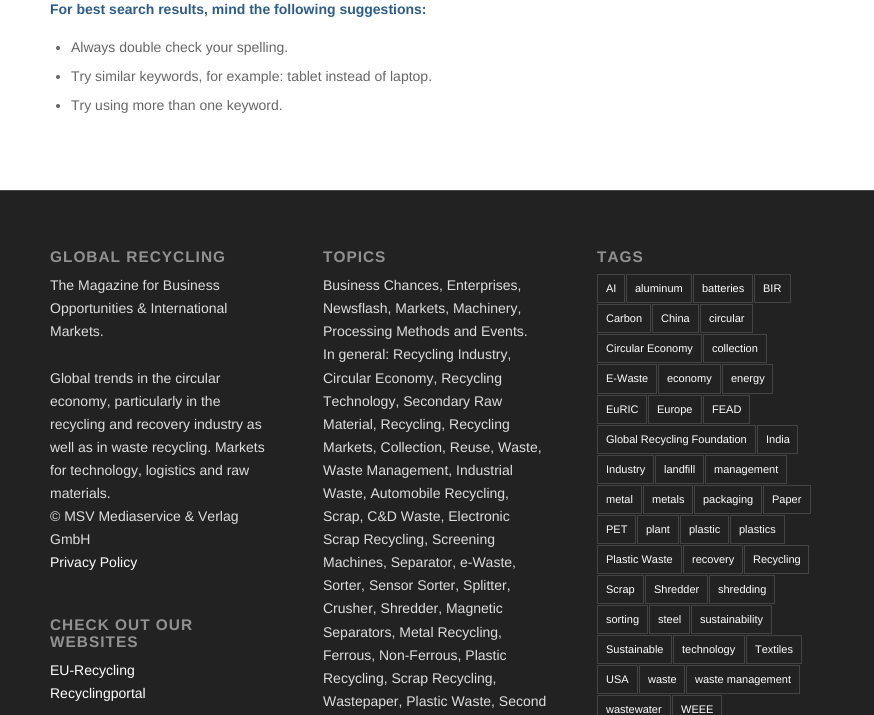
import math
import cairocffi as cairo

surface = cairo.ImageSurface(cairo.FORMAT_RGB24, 874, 715)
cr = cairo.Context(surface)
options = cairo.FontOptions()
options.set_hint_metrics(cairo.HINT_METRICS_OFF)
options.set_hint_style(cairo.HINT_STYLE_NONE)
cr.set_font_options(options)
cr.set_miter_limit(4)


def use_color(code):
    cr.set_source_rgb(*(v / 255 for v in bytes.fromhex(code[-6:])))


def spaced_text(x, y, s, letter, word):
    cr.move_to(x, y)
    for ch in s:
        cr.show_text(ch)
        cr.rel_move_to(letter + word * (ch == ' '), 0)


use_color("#ffffff")
cr.paint()
cr.select_font_face("Liberation Sans", cairo.FONT_SLANT_NORMAL, cairo.FONT_WEIGHT_BOLD)
cr.set_font_size(14)
use_color("#2d5c88")
cr.move_to(50, 14)
cr.show_text("For best search results, mind the following suggestions:")
use_color("#666666")
cr.new_path()
cr.arc(58, 48, 2, 0, 2 * math.pi)
cr.fill()
cr.select_font_face("Liberation Sans")
cr.move_to(71, 52)
cr.show_text("Always double check your spelling.")
cr.new_path()
cr.arc(58, 77, 2, 0, 2 * math.pi)
cr.fill()
cr.move_to(71, 81)
cr.show_text("Try similar keywords, for example: tablet instead of laptop.")
cr.new_path()
cr.arc(58, 106, 2, 0, 2 * math.pi)
cr.fill()
cr.move_to(71, 110)
cr.show_text("Try using more than one keyword.")
use_color("#222222")
cr.rectangle(0, 191, 874, 524)
cr.fill()
use_color("#444444")
cr.rectangle(0, 190, 874, 1)
cr.fill()
cr.select_font_face("Liberation Sans", cairo.FONT_SLANT_NORMAL, cairo.FONT_WEIGHT_BOLD)
cr.set_font_size(15.4)
use_color("#919191")
spaced_text(50, 262, "GLOBAL RECYCLING", 1, 0)
cr.select_font_face("Liberation Sans")
cr.set_font_size(14)
use_color("#dddddd")
cr.move_to(50, 290)
cr.show_text("The Magazine for Business")
cr.move_to(50, 313)
cr.show_text("Opportunities & International")
cr.move_to(50, 336)
cr.show_text("Markets.")
cr.move_to(50, 383)
cr.show_text("Global trends in the circular")
cr.move_to(50, 406)
cr.show_text("economy, particularly in the")
cr.move_to(50, 429)
cr.show_text("recycling and recovery industry as")
cr.move_to(50, 452)
cr.show_text("well as in waste recycling. Markets")
cr.move_to(50, 475)
cr.show_text("for technology, logistics and raw")
cr.move_to(50, 498)
cr.show_text("materials.")
cr.move_to(50, 521)
cr.show_text("© MSV Mediaservice & Verlag")
cr.move_to(50, 544)
cr.show_text("GmbH")
use_color("#ffffff")
cr.move_to(50, 567)
cr.show_text("Privacy Policy")
cr.select_font_face("Liberation Sans", cairo.FONT_SLANT_NORMAL, cairo.FONT_WEIGHT_BOLD)
cr.set_font_size(15.4)
use_color("#919191")
spaced_text(50, 630, "CHECK OUT OUR", 1, 0)
spaced_text(50, 647, "WEBSITES", 1, 0)
cr.select_font_face("Liberation Sans")
cr.set_font_size(14)
use_color("#ffffff")
cr.move_to(50, 675)
cr.show_text("EU-Recycling")
cr.move_to(50, 698)
cr.show_text("Recyclingportal")
cr.select_font_face("Liberation Sans", cairo.FONT_SLANT_NORMAL, cairo.FONT_WEIGHT_BOLD)
cr.set_font_size(15.4)
use_color("#919191")
spaced_text(323, 262, "TOPICS", 1, 0)
cr.select_font_face("Liberation Sans")
cr.set_font_size(14)
use_color("#dddddd")
cr.move_to(323, 290)
cr.show_text("Business Chances, Enterprises,")
cr.move_to(323, 313)
cr.show_text("Newsflash, Markets, Machinery,")
cr.move_to(323, 336)
cr.show_text("Processing Methods and Events.")
cr.move_to(323, 359)
cr.show_text("In general: Recycling Industry,")
cr.move_to(323, 383)
cr.show_text("Circular Economy, Recycling")
cr.move_to(323, 406)
cr.show_text("Technology, Secondary Raw")
cr.move_to(323, 429)
cr.show_text("Material, Recycling, Recycling")
cr.move_to(323, 452)
cr.show_text("Markets, Collection, Reuse, Waste,")
cr.move_to(323, 475)
cr.show_text("Waste Management, Industrial")
cr.move_to(323, 498)
cr.show_text("Waste, Automobile Recycling,")
cr.move_to(323, 521)
cr.show_text("Scrap, C&D Waste, Electronic")
cr.move_to(323, 544)
cr.show_text("Scrap Recycling, Screening")
cr.move_to(323, 567)
cr.show_text("Machines, Separator, e-Waste,")
cr.move_to(323, 590)
cr.show_text("Sorter, Sensor Sorter, Splitter,")
cr.move_to(323, 613)
cr.show_text("Crusher, Shredder, Magnetic")
cr.move_to(323, 637)
cr.show_text("Separators, Metal Recycling,")
cr.move_to(323, 660)
cr.show_text("Ferrous, Non-Ferrous, Plastic")
cr.move_to(323, 683)
cr.show_text("Recycling, Scrap Recycling,")
cr.move_to(323, 706)
cr.show_text("Wastepaper, Plastic Waste, Second")
cr.select_font_face("Liberation Sans", cairo.FONT_SLANT_NORMAL, cairo.FONT_WEIGHT_BOLD)
cr.set_font_size(15.4)
use_color("#919191")
spaced_text(597, 262, "TAGS", 1, 0)
cr.rectangle(597.5, 274.5, 27, 28)
use_color("#444444")
cr.set_line_width(1)
cr.stroke()
cr.select_font_face("Liberation Sans")
cr.set_font_size(11)
use_color("#ffffff")
cr.move_to(606, 292)
cr.show_text("AI")
cr.rectangle(626.5, 274.5, 65, 28)
use_color("#444444")
cr.stroke()
use_color("#ffffff")
cr.move_to(635, 292)
cr.show_text("aluminum")
cr.rectangle(693.5, 274.5, 59, 28)
use_color("#444444")
cr.stroke()
use_color("#ffffff")
cr.move_to(702, 292)
cr.show_text("batteries")
cr.rectangle(754.5, 274.5, 36, 28)
use_color("#444444")
cr.stroke()
use_color("#ffffff")
cr.move_to(763, 292)
cr.show_text("BIR")
cr.rectangle(597.5, 304.5, 53, 28)
use_color("#444444")
cr.stroke()
use_color("#ffffff")
cr.move_to(606, 322)
cr.show_text("Carbon")
cr.rectangle(652.5, 304.5, 46, 28)
use_color("#444444")
cr.stroke()
use_color("#ffffff")
cr.move_to(661, 322)
cr.show_text("China")
cr.rectangle(700.5, 304.5, 52, 28)
use_color("#444444")
cr.stroke()
use_color("#ffffff")
cr.move_to(709, 322)
cr.show_text("circular")
cr.rectangle(597.5, 334.5, 104, 28)
use_color("#444444")
cr.stroke()
use_color("#ffffff")
cr.move_to(606, 352)
cr.show_text("Circular Economy")
cr.rectangle(703.5, 334.5, 63, 28)
use_color("#444444")
cr.stroke()
use_color("#ffffff")
cr.move_to(712, 352)
cr.show_text("collection")
cr.rectangle(597.5, 364.5, 59, 29)
use_color("#444444")
cr.stroke()
use_color("#ffffff")
cr.move_to(606, 382)
cr.show_text("E-Waste")
cr.rectangle(658.5, 364.5, 62, 29)
use_color("#444444")
cr.stroke()
use_color("#ffffff")
cr.move_to(667, 382)
cr.show_text("economy")
cr.rectangle(722.5, 364.5, 50, 29)
use_color("#444444")
cr.stroke()
use_color("#ffffff")
cr.move_to(731, 382)
cr.show_text("energy")
cr.rectangle(597.5, 395.5, 49, 28)
use_color("#444444")
cr.stroke()
use_color("#ffffff")
cr.move_to(606, 413)
cr.show_text("EuRIC")
cr.rectangle(648.5, 395.5, 53, 28)
use_color("#444444")
cr.stroke()
use_color("#ffffff")
cr.move_to(657, 413)
cr.show_text("Europe")
cr.rectangle(703.5, 395.5, 46, 28)
use_color("#444444")
cr.stroke()
use_color("#ffffff")
cr.move_to(712, 413)
cr.show_text("FEAD")
cr.rectangle(597.5, 425.5, 158, 28)
use_color("#444444")
cr.stroke()
use_color("#ffffff")
cr.move_to(606, 443)
cr.show_text("Global Recycling Foundation")
cr.rectangle(757.5, 425.5, 40, 28)
use_color("#444444")
cr.stroke()
use_color("#ffffff")
cr.move_to(766, 443)
cr.show_text("India")
cr.rectangle(597.5, 455.5, 56, 28)
use_color("#444444")
cr.stroke()
use_color("#ffffff")
cr.move_to(606, 473)
cr.show_text("Industry")
cr.rectangle(655.5, 455.5, 48, 28)
use_color("#444444")
cr.stroke()
use_color("#ffffff")
cr.move_to(664, 473)
cr.show_text("landfill")
cr.rectangle(705.5, 455.5, 81, 28)
use_color("#444444")
cr.stroke()
use_color("#ffffff")
cr.move_to(714, 473)
cr.show_text("management")
cr.rectangle(597.5, 485.5, 44, 28)
use_color("#444444")
cr.stroke()
use_color("#ffffff")
cr.move_to(606, 503)
cr.show_text("metal")
cr.rectangle(643.5, 485.5, 49, 28)
use_color("#444444")
cr.stroke()
use_color("#ffffff")
cr.move_to(652, 503)
cr.show_text("metals")
cr.rectangle(694.5, 485.5, 67, 28)
use_color("#444444")
cr.stroke()
use_color("#ffffff")
cr.move_to(703, 503)
cr.show_text("packaging")
cr.rectangle(763.5, 485.5, 47, 28)
use_color("#444444")
cr.stroke()
use_color("#ffffff")
cr.move_to(772, 503)
cr.show_text("Paper")
cr.rectangle(597.5, 515.5, 38, 28)
use_color("#444444")
cr.stroke()
use_color("#ffffff")
cr.move_to(606, 533)
cr.show_text("PET")
cr.rectangle(637.5, 515.5, 41, 28)
use_color("#444444")
cr.stroke()
use_color("#ffffff")
cr.move_to(646, 533)
cr.show_text("plant")
cr.rectangle(680.5, 515.5, 48, 28)
use_color("#444444")
cr.stroke()
use_color("#ffffff")
cr.move_to(689, 533)
cr.show_text("plastic")
cr.rectangle(730.5, 515.5, 54, 28)
use_color("#444444")
cr.stroke()
use_color("#ffffff")
cr.move_to(739, 533)
cr.show_text("plastics")
cr.rectangle(597.5, 545.5, 84, 28)
use_color("#444444")
cr.stroke()
use_color("#ffffff")
cr.move_to(606, 563)
cr.show_text("Plastic Waste")
cr.rectangle(683.5, 545.5, 59, 28)
use_color("#444444")
cr.stroke()
use_color("#ffffff")
cr.move_to(692, 563)
cr.show_text("recovery")
cr.rectangle(744.5, 545.5, 64, 28)
use_color("#444444")
cr.stroke()
use_color("#ffffff")
cr.move_to(753, 563)
cr.show_text("Recycling")
cr.rectangle(597.5, 575.5, 46, 28)
use_color("#444444")
cr.stroke()
use_color("#ffffff")
cr.move_to(606, 593)
cr.show_text("Scrap")
cr.rectangle(645.5, 575.5, 62, 28)
use_color("#444444")
cr.stroke()
use_color("#ffffff")
cr.move_to(654, 593)
cr.show_text("Shredder")
cr.rectangle(709.5, 575.5, 65, 28)
use_color("#444444")
cr.stroke()
use_color("#ffffff")
cr.move_to(718, 593)
cr.show_text("shredding")
cr.rectangle(597.5, 605.5, 50, 28)
use_color("#444444")
cr.stroke()
use_color("#ffffff")
cr.move_to(606, 623)
cr.show_text("sorting")
cr.rectangle(649.5, 605.5, 40, 28)
use_color("#444444")
cr.stroke()
use_color("#ffffff")
cr.move_to(658, 623)
cr.show_text("steel")
cr.rectangle(691.5, 605.5, 80, 28)
use_color("#444444")
cr.stroke()
use_color("#ffffff")
cr.move_to(700, 623)
cr.show_text("sustainability")
cr.rectangle(597.5, 635.5, 74, 28)
use_color("#444444")
cr.stroke()
use_color("#ffffff")
cr.move_to(606, 653)
cr.show_text("Sustainable")
cr.rectangle(673.5, 635.5, 71, 28)
use_color("#444444")
cr.stroke()
use_color("#ffffff")
cr.move_to(682, 653)
cr.show_text("technology")
cr.rectangle(746.5, 635.5, 55, 28)
use_color("#444444")
cr.stroke()
use_color("#ffffff")
cr.move_to(755, 653)
cr.show_text("Textiles")
cr.rectangle(597.5, 665.5, 40, 28)
use_color("#444444")
cr.stroke()
use_color("#ffffff")
cr.move_to(606, 683)
cr.show_text("USA")
cr.rectangle(639.5, 665.5, 45, 28)
use_color("#444444")
cr.stroke()
use_color("#ffffff")
cr.move_to(648, 683)
cr.show_text("waste")
cr.rectangle(686.5, 665.5, 113, 28)
use_color("#444444")
cr.stroke()
use_color("#ffffff")
cr.move_to(695, 683)
cr.show_text("waste management")
cr.rectangle(597.5, 695.5, 73, 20)
use_color("#444444")
cr.stroke()
use_color("#ffffff")
cr.move_to(606, 713)
cr.show_text("wastewater")
cr.rectangle(672.5, 695.5, 49, 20)
use_color("#444444")
cr.stroke()
use_color("#ffffff")
cr.move_to(681, 713)
cr.show_text("WEEE")
surface.write_to_png("result.png")
